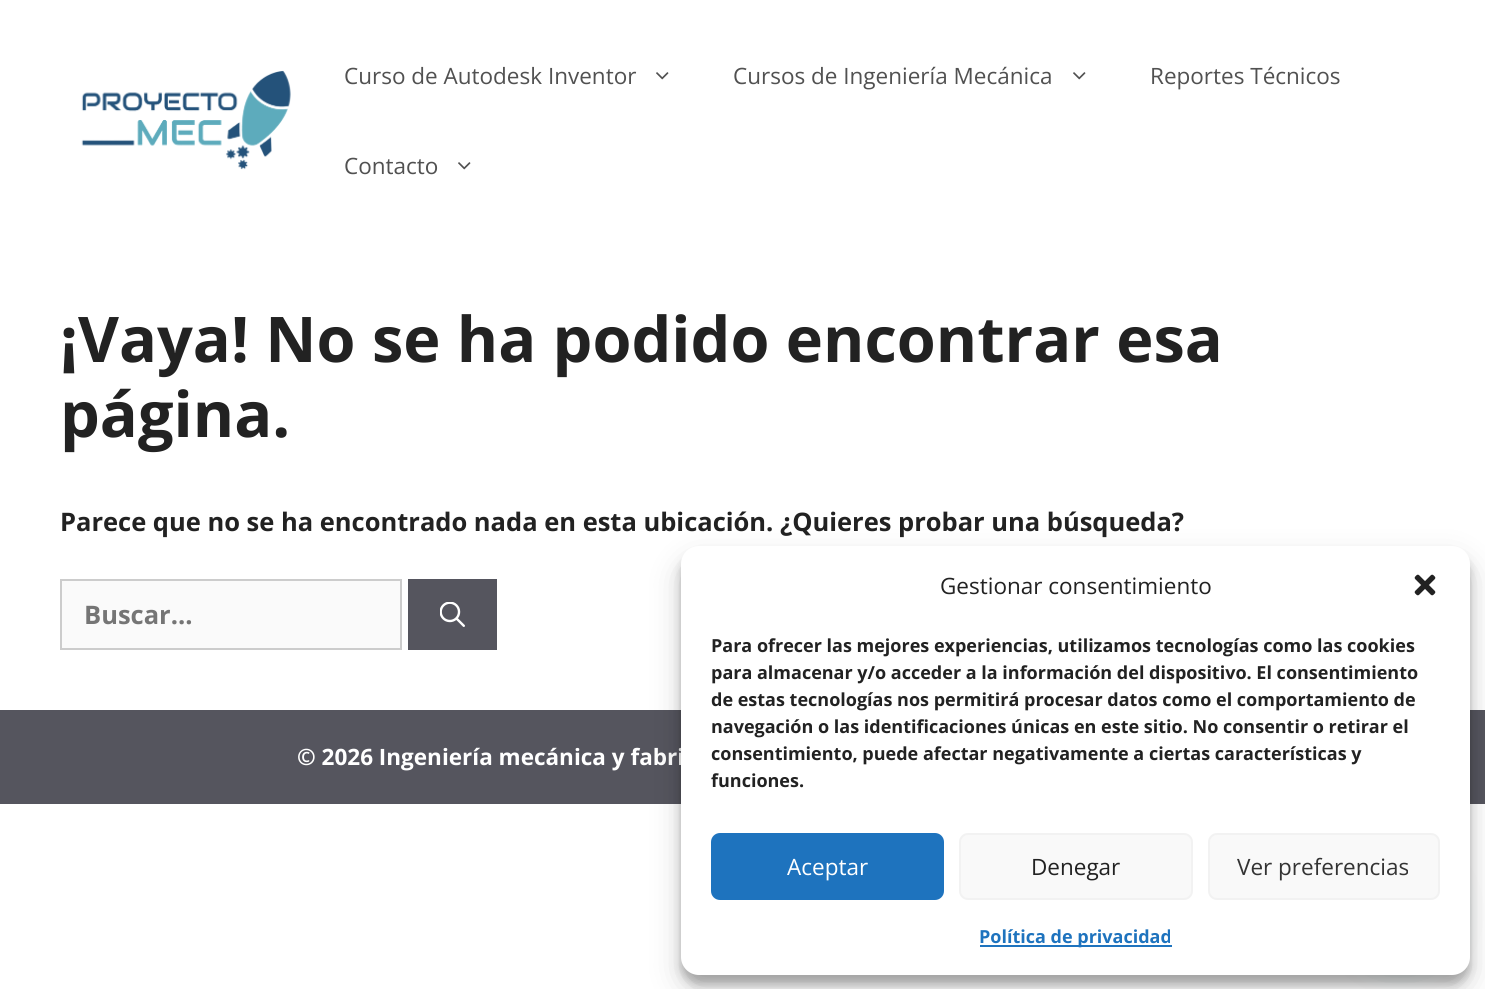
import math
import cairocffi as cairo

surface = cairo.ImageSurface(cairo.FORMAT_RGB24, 1485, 989)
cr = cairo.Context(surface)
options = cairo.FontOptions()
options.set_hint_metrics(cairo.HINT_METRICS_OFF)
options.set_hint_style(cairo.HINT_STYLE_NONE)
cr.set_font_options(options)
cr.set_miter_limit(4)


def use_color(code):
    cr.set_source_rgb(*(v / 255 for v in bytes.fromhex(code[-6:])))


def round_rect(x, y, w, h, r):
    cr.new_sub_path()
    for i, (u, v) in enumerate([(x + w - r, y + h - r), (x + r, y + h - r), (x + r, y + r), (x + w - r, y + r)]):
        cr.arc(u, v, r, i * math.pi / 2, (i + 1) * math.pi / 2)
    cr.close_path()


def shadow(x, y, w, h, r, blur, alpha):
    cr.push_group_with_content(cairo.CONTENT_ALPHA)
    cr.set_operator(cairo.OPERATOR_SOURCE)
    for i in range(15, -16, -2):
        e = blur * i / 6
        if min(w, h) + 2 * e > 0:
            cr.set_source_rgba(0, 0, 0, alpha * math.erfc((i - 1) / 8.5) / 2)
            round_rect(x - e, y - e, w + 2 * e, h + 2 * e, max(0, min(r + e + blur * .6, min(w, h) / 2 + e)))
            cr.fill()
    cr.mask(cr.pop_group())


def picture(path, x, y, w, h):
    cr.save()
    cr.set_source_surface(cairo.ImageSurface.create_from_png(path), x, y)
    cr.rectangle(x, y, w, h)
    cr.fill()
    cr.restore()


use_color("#ffffff")
cr.paint()
picture("img1.png", 81, 70, 210, 100)
cr.select_font_face("Open Sans")
cr.set_font_size(22.5)
use_color("#515151")
cr.move_to(344, 84)
cr.show_text("Curso de Autodesk Inventor")
picture("img2.png", 656, 72, 13, 8)
cr.move_to(733, 84)
cr.show_text("Cursos de Ingeniería Mecánica")
picture("img2.png", 1073, 72, 13, 8)
cr.move_to(1150, 84)
cr.show_text("Reportes Técnicos")
cr.move_to(344, 174)
cr.show_text("Contacto")
picture("img2.png", 458, 162, 13, 8)
cr.select_font_face("Open Sans", cairo.FONT_SLANT_NORMAL, cairo.FONT_WEIGHT_BOLD)
cr.set_font_size(63)
use_color("#222222")
cr.move_to(60, 362)
cr.show_text("¡Vaya! No se ha podido encontrar esa")
cr.move_to(60, 437)
cr.show_text("página.")
cr.set_font_size(25.5)
cr.move_to(60, 531)
cr.show_text("Parece que no se ha encontrado nada en esta ubicación. ¿Quieres probar una búsqueda?")
use_color("#fafafa")
cr.rectangle(61, 580, 340, 69)
cr.fill_preserve()
use_color("#cccccc")
cr.stroke()
use_color("#757575")
cr.move_to(84, 624)
cr.show_text("Buscar...")
use_color("#55555e")
cr.rectangle(408, 579, 89, 71)
cr.fill()
picture("img3.png", 440, 602, 25, 25)
cr.rectangle(0, 710, 1485, 94)
cr.fill()
cr.set_font_size(22.5)
use_color("#ffffff")
cr.move_to(297, 765)
cr.show_text("© 2026 Ingeniería mecánica y fabri")
use_color("#000000")
shadow(681, 555, 789, 429, 18, 4.5, 0.23)
shadow(681, 561, 789, 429, 18, 15, 0.19)
use_color("#075e54")
shadow(1355, 867, 90, 90, 45, 18, 0.24)
use_color("#ffffff")
round_rect(681, 546, 789, 429, 18)
cr.fill()
cr.select_font_face("Open Sans")
use_color("#222222")
cr.move_to(940, 594)
cr.show_text("Gestionar consentimiento")
picture("img4.png", 1414, 574, 22, 22)
cr.select_font_face("Open Sans", cairo.FONT_SLANT_NORMAL, cairo.FONT_WEIGHT_BOLD)
cr.set_font_size(18)
cr.move_to(711, 652)
cr.show_text("Para ofrecer las mejores experiencias, utilizamos tecnologías como las cookies")
cr.move_to(711, 679)
cr.show_text("para almacenar y/o acceder a la información del dispositivo. El consentimiento")
cr.move_to(711, 706)
cr.show_text("de estas tecnologías nos permitirá procesar datos como el comportamiento de")
cr.move_to(711, 733)
cr.show_text("navegación o las identificaciones únicas en este sitio. No consentir o retirar el")
cr.move_to(711, 760)
cr.show_text("consentimiento, puede afectar negativamente a ciertas características y")
cr.move_to(711, 787)
cr.show_text("funciones.")
use_color("#1e73be")
round_rect(712, 834, 231, 65, 8)
cr.fill_preserve()
cr.stroke()
cr.select_font_face("Open Sans")
cr.set_font_size(22.5)
use_color("#ffffff")
cr.move_to(787, 875)
cr.show_text("Aceptar")
use_color("#f9f9f9")
round_rect(960, 834, 232, 65, 8)
cr.fill_preserve()
use_color("#f2f2f2")
cr.stroke()
use_color("#222222")
cr.move_to(1031, 875)
cr.show_text("Denegar")
use_color("#f9f9f9")
round_rect(1209, 834, 230, 65, 8)
cr.fill_preserve()
use_color("#f2f2f2")
cr.stroke()
use_color("#333333")
cr.move_to(1237, 875)
cr.show_text("Ver preferencias")
use_color("#1e73be")
cr.rectangle(980, 945, 192, 2)
cr.fill()
cr.select_font_face("Open Sans", cairo.FONT_SLANT_NORMAL, cairo.FONT_WEIGHT_BOLD)
cr.set_font_size(18)
cr.move_to(979, 943)
cr.show_text("Política de privacidad")
surface.write_to_png("result.png")
